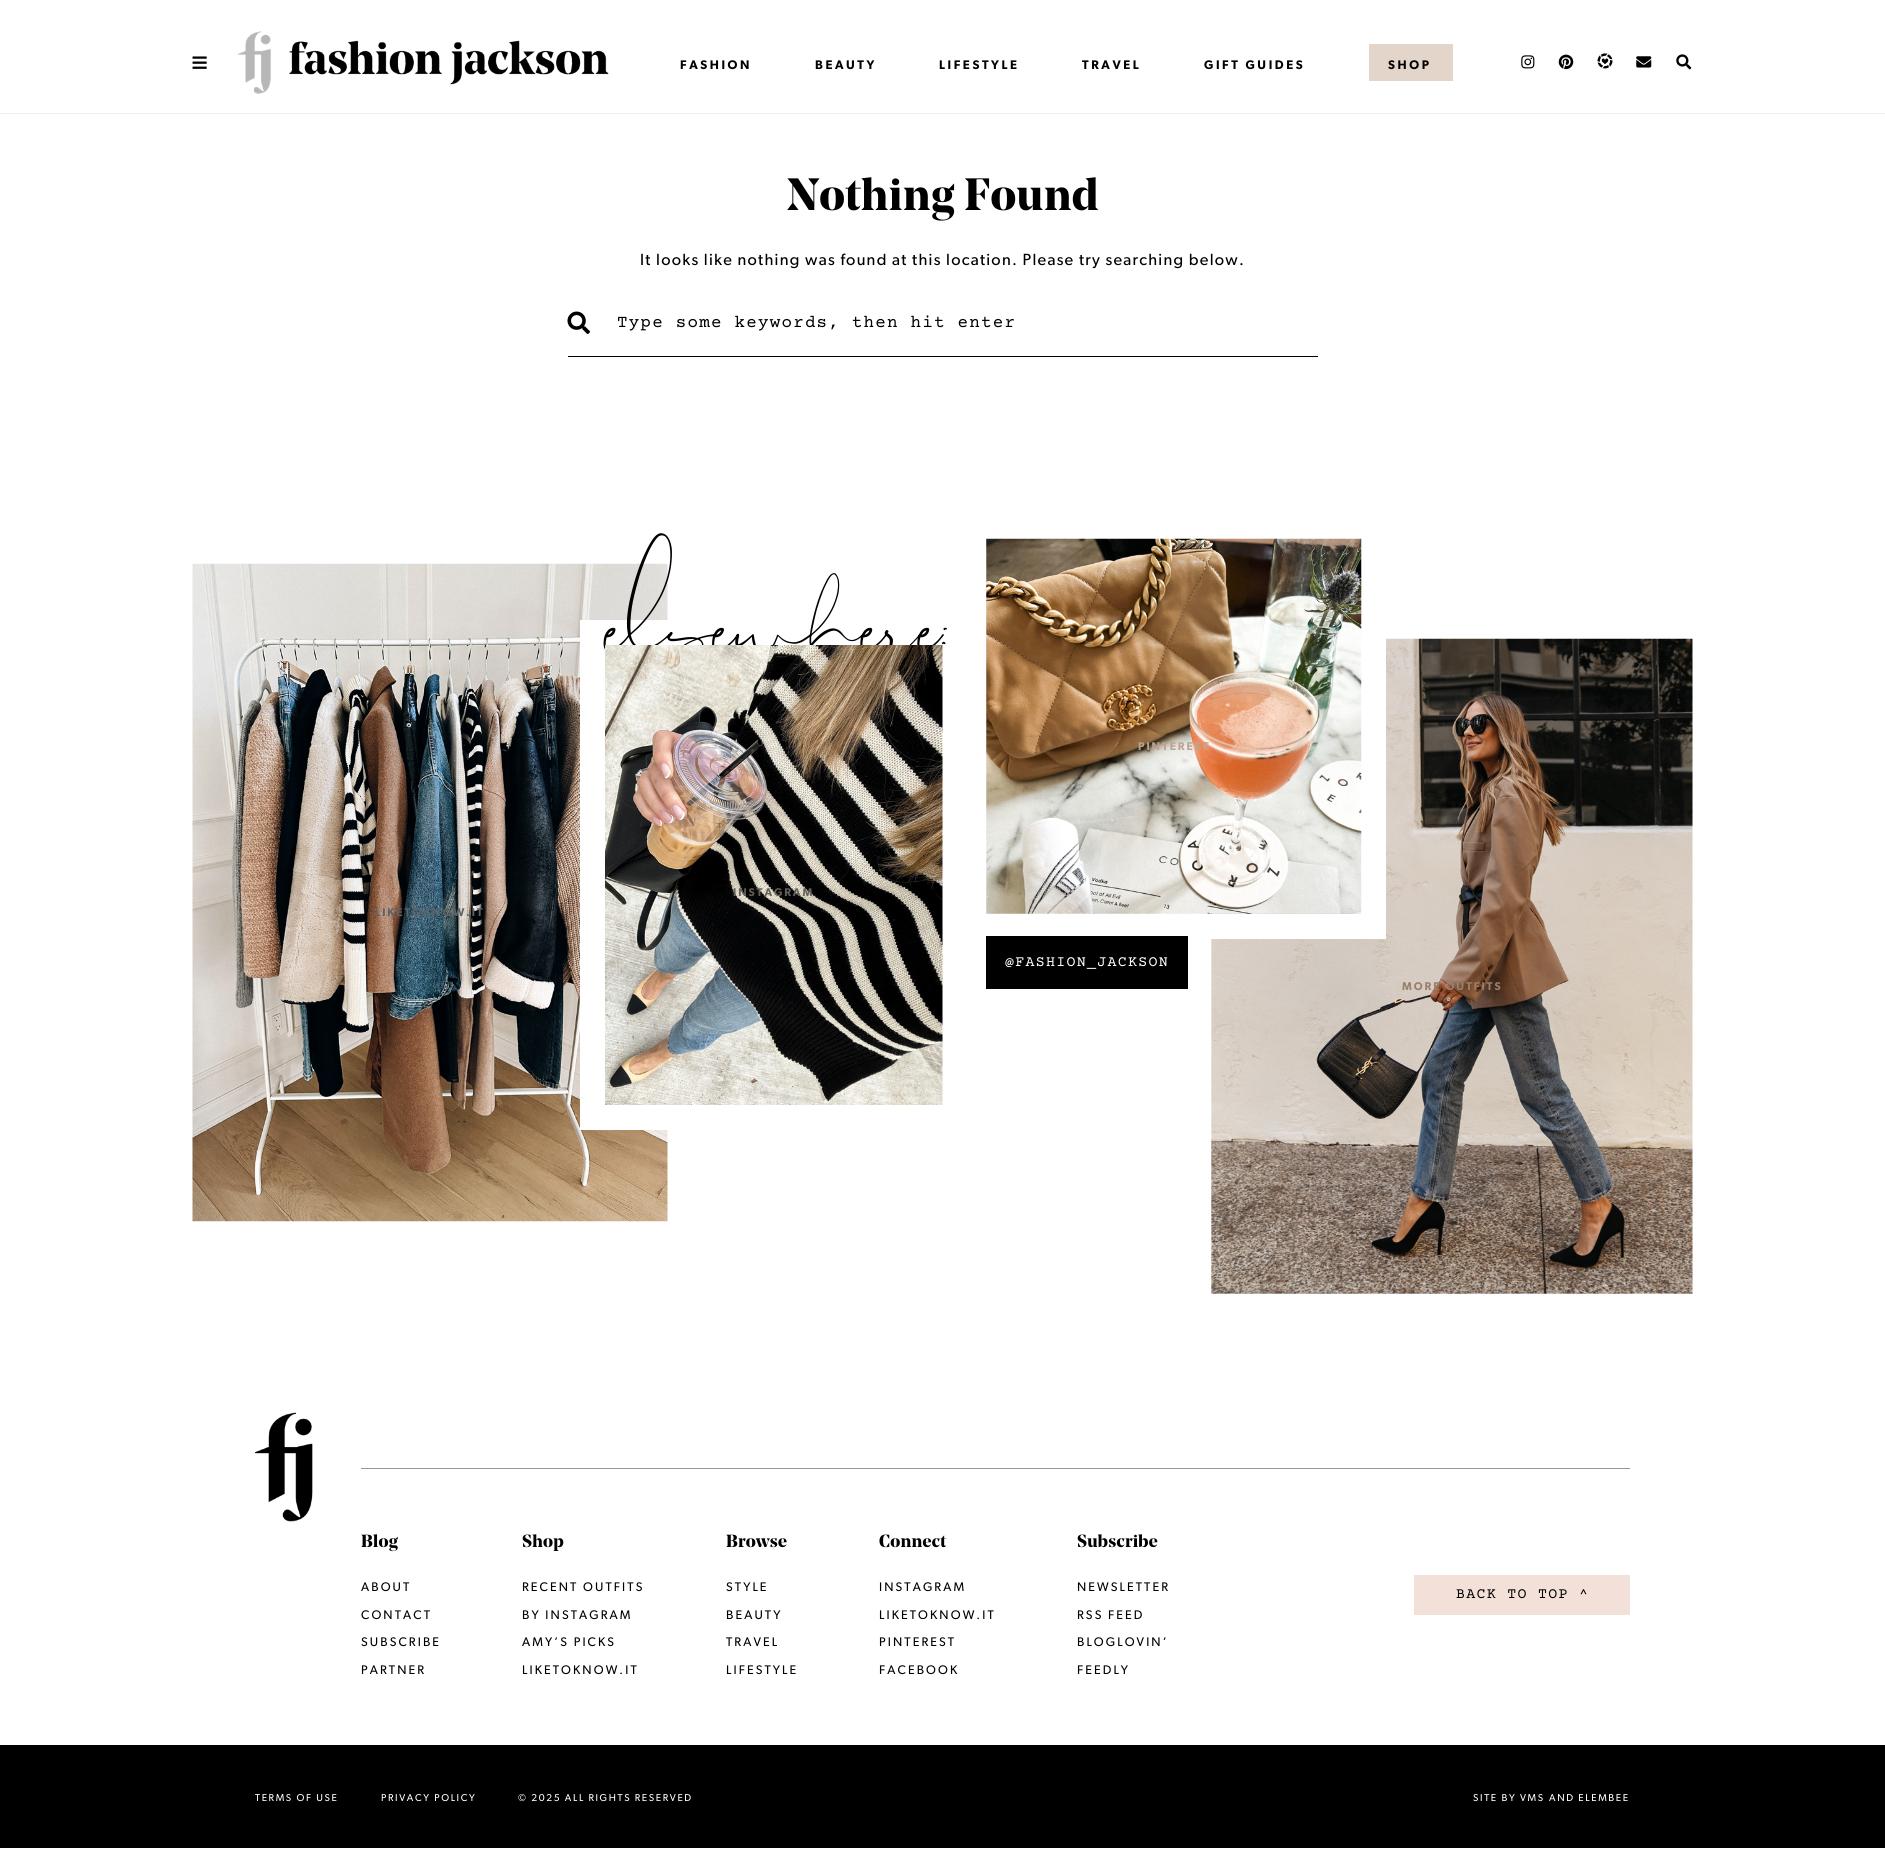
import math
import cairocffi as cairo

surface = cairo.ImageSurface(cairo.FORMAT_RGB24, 1885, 1860)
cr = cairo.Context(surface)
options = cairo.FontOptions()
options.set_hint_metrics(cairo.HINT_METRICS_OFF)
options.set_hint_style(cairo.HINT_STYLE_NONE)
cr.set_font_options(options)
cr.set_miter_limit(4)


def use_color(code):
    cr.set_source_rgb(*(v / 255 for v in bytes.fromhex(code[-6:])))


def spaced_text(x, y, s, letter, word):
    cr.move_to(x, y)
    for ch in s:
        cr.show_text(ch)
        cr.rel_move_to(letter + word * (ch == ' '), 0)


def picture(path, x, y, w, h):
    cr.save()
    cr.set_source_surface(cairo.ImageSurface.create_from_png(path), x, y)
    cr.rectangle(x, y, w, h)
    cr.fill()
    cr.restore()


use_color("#ffffff")
cr.paint()
use_color("#f4f1ec")
cr.rectangle(0, 113, 1885, 1)
cr.fill()
picture("img1.png", 192, 56, 15, 13)
picture("img2.png", 237, 31, 372, 63)
cr.select_font_face("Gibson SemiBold")
cr.set_font_size(12.5)
use_color("#000000")
spaced_text(680, 69, "FASHION", 2.6, 0)
spaced_text(815, 69, "BEAUTY", 2.6, 0)
spaced_text(939, 69, "LIFESTYLE", 2.6, 0)
spaced_text(1082, 69, "TRAVEL", 2.6, 0)
spaced_text(1204, 69, "GIFT GUIDES", 2.6, 0)
use_color("#e4d5ca")
cr.rectangle(1369, 44, 84, 37)
cr.fill()
use_color("#000000")
spaced_text(1388, 69, "SHOP", 2.6, 0)
picture("img3.png", 1521, 55, 14, 14)
picture("img4.png", 1558, 54, 16, 16)
picture("img5.png", 1597, 53, 16, 16)
picture("img6.png", 1636, 56, 16, 12)
picture("img7.png", 1676, 54, 16, 16)
cr.select_font_face("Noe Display", cairo.FONT_SLANT_NORMAL, cairo.FONT_WEIGHT_BOLD)
cr.set_font_size(45)
spaced_text(787, 210, "Nothing Found", 0.4, 0)
cr.select_font_face("Gibson")
cr.set_font_size(16.25)
spaced_text(640, 265, "It looks like nothing was found at this location. Please try searching below.", 1.25, 0)
cr.rectangle(568, 356, 750, 1)
cr.fill()
picture("img8.png", 567, 311, 23, 23)
cr.select_font_face("Courier Prime")
cr.set_font_size(17.5)
spaced_text(617, 327, "Type some keywords, then hit enter", 1.25, 0)
picture("img9.png", 192, 563, 476, 659)
cr.select_font_face("Gibson SemiBold")
cr.set_font_size(11.25)
use_color("#5d6265")
spaced_text(375, 916, "LIKETOKNOW.IT", 1.9, 0)
use_color("#ffffff")
cr.rectangle(605, 620, 63, 25)
cr.fill()
cr.rectangle(580, 620, 25, 510)
cr.fill()
cr.select_font_face("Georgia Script")
cr.set_font_size(180)
use_color("#000000")
cr.move_to(605, 668)
cr.show_text("elsewhere:")
use_color("#ffffff")
cr.rectangle(605, 1105, 63, 25)
cr.fill()
picture("img10.png", 605, 645, 338, 460)
cr.select_font_face("Gibson SemiBold")
cr.set_font_size(11.25)
use_color("#626059")
spaced_text(733, 896, "INSTAGRAM", 1.9, 0)
picture("img12.png", 1211, 638, 482, 656)
use_color("#ffffff")
cr.rectangle(1361, 638, 25, 276)
cr.fill()
cr.rectangle(1211, 914, 175, 25)
cr.fill()
picture("img11.png", 986, 538, 376, 376)
use_color("#bba38f")
spaced_text(1138, 750, "PINTEREST", 1.9, 0)
use_color("#000000")
cr.rectangle(986, 936, 202, 53)
cr.fill()
cr.select_font_face("Courier Prime")
cr.set_font_size(15)
use_color("#ffffff")
spaced_text(1005, 966, "@FASHION_JACKSON", 1.25, 0)
cr.select_font_face("Gibson SemiBold")
cr.set_font_size(11.25)
use_color("#9a7e6d")
spaced_text(1402, 990, "MORE OUTFITS", 1.9, 0)
picture("img13.png", 255, 1412, 58, 110)
use_color("#979797")
cr.rectangle(361, 1468, 1269, 1)
cr.fill()
cr.select_font_face("Noe Display", cairo.FONT_SLANT_NORMAL, cairo.FONT_WEIGHT_BOLD)
cr.set_font_size(17.5)
use_color("#000000")
spaced_text(361, 1547, "Blog", 0.25, 0)
cr.select_font_face("Gibson")
cr.set_font_size(12.5)
spaced_text(361, 1591, "ABOUT", 2.1, 0)
spaced_text(361, 1619, "CONTACT", 2.1, 0)
spaced_text(361, 1646, "SUBSCRIBE", 2.1, 0)
spaced_text(361, 1674, "PARTNER", 2.1, 0)
cr.select_font_face("Noe Display", cairo.FONT_SLANT_NORMAL, cairo.FONT_WEIGHT_BOLD)
cr.set_font_size(17.5)
spaced_text(522, 1547, "Shop", 0.25, 0)
cr.select_font_face("Gibson")
cr.set_font_size(12.5)
spaced_text(522, 1591, "RECENT OUTFITS", 2.1, 0)
spaced_text(522, 1619, "BY INSTAGRAM", 2.1, 0)
spaced_text(522, 1646, "AMY’S PICKS", 2.1, 0)
spaced_text(522, 1674, "LIKETOKNOW.IT", 2.1, 0)
cr.select_font_face("Noe Display", cairo.FONT_SLANT_NORMAL, cairo.FONT_WEIGHT_BOLD)
cr.set_font_size(17.5)
spaced_text(726, 1547, "Browse", 0.25, 0)
cr.select_font_face("Gibson")
cr.set_font_size(12.5)
spaced_text(726, 1591, "STYLE", 2.1, 0)
spaced_text(726, 1619, "BEAUTY", 2.1, 0)
spaced_text(726, 1646, "TRAVEL", 2.1, 0)
spaced_text(726, 1674, "LIFESTYLE", 2.1, 0)
cr.select_font_face("Noe Display", cairo.FONT_SLANT_NORMAL, cairo.FONT_WEIGHT_BOLD)
cr.set_font_size(17.5)
spaced_text(879, 1547, "Connect", 0.25, 0)
cr.select_font_face("Gibson")
cr.set_font_size(12.5)
spaced_text(879, 1591, "INSTAGRAM", 2.1, 0)
spaced_text(879, 1619, "LIKETOKNOW.IT", 2.1, 0)
spaced_text(879, 1646, "PINTEREST", 2.1, 0)
spaced_text(879, 1674, "FACEBOOK", 2.1, 0)
cr.select_font_face("Noe Display", cairo.FONT_SLANT_NORMAL, cairo.FONT_WEIGHT_BOLD)
cr.set_font_size(17.5)
spaced_text(1077, 1547, "Subscribe", 0.25, 0)
cr.select_font_face("Gibson")
cr.set_font_size(12.5)
spaced_text(1077, 1591, "NEWSLETTER", 2.1, 0)
spaced_text(1077, 1619, "RSS FEED", 2.1, 0)
spaced_text(1077, 1646, "BLOGLOVIN’", 2.1, 0)
spaced_text(1077, 1674, "FEEDLY", 2.1, 0)
use_color("#f3e1d9")
cr.rectangle(1414, 1575, 216, 40)
cr.fill()
cr.select_font_face("Courier Prime")
cr.set_font_size(15)
use_color("#000000")
spaced_text(1456, 1598, "BACK TO TOP ^", 1.25, 0)
cr.rectangle(0, 1745, 1885, 103)
cr.fill()
cr.select_font_face("Gibson")
cr.set_font_size(10)
use_color("#ffffff")
spaced_text(255, 1801, "TERMS OF USE", 1.65, 0)
spaced_text(381, 1801, "PRIVACY POLICY", 1.65, 0)
spaced_text(518, 1801, "© 2025 ALL RIGHTS RESERVED", 1.65, 0)
spaced_text(1473, 1801, "SITE BY VMS", 1.65, 0)
spaced_text(1549, 1801, "AND ELEMBEE", 1.65, 0)
surface.write_to_png("result.png")
